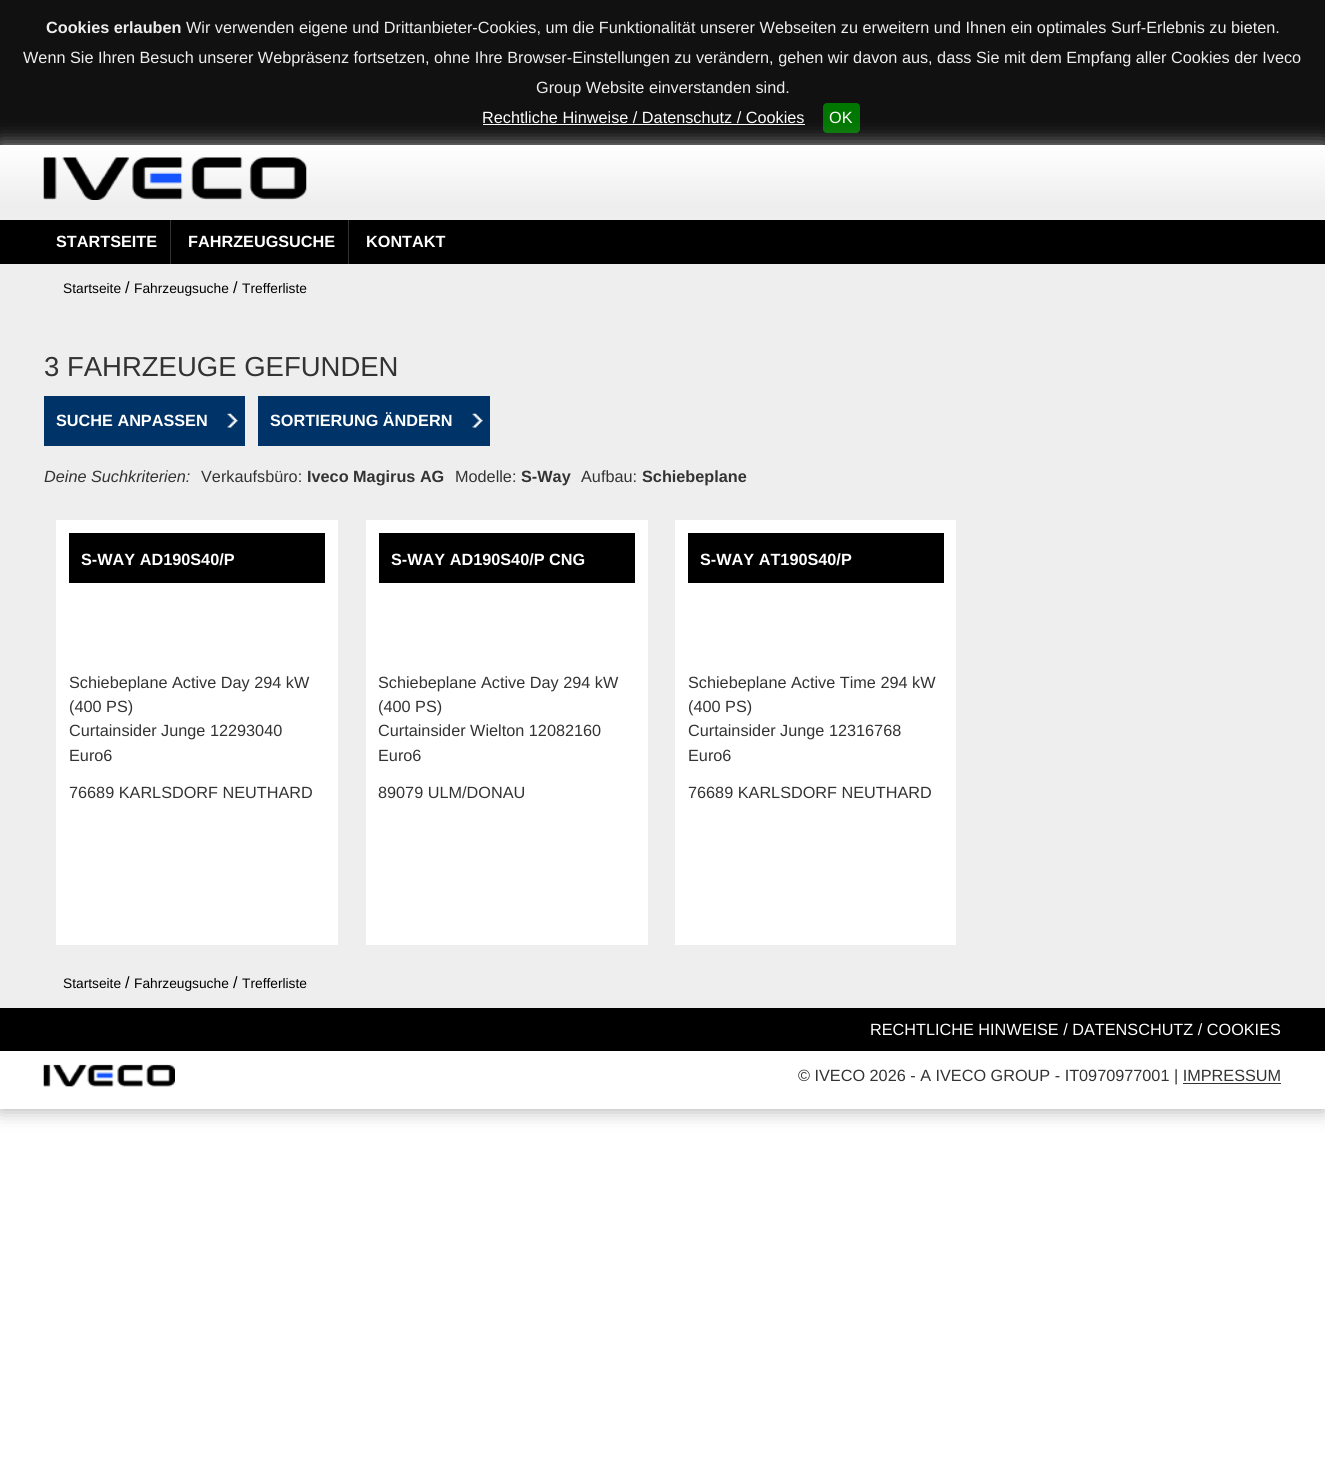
import math
import cairocffi as cairo

surface = cairo.ImageSurface(cairo.FORMAT_RGB24, 1325, 1466)
cr = cairo.Context(surface)
options = cairo.FontOptions()
options.set_hint_metrics(cairo.HINT_METRICS_OFF)
options.set_hint_style(cairo.HINT_STYLE_NONE)
cr.set_font_options(options)
cr.set_miter_limit(4)


def use_color(code):
    cr.set_source_rgb(*(v / 255 for v in bytes.fromhex(code[-6:])))


def round_rect(x, y, w, h, r):
    cr.new_sub_path()
    for i, (u, v) in enumerate([(x + w - r, y + h - r), (x + r, y + h - r), (x + r, y + r), (x + w - r, y + r)]):
        cr.arc(u, v, r, i * math.pi / 2, (i + 1) * math.pi / 2)
    cr.close_path()


def shadow(x, y, w, h, r, blur, alpha):
    cr.push_group_with_content(cairo.CONTENT_ALPHA)
    cr.set_operator(cairo.OPERATOR_SOURCE)
    for i in range(15, -16, -2):
        e = blur * i / 6
        if min(w, h) + 2 * e > 0:
            cr.set_source_rgba(0, 0, 0, alpha * math.erfc((i - 1) / 8.5) / 2)
            round_rect(x - e, y - e, w + 2 * e, h + 2 * e, max(0, min(r + e + blur * .6, min(w, h) / 2 + e)))
            cr.fill()
    cr.mask(cr.pop_group())


def picture(path, x, y, w, h):
    cr.save()
    cr.set_source_surface(cairo.ImageSurface.create_from_png(path), x, y)
    cr.rectangle(x, y, w, h)
    cr.fill()
    cr.restore()


use_color("#ffffff")
cr.paint()
use_color("#111111")
cr.rectangle(0, 0, 1325, 145)
cr.fill()
cr.select_font_face("Liberation Sans", cairo.FONT_SLANT_NORMAL, cairo.FONT_WEIGHT_BOLD)
cr.set_font_size(16.25)
use_color("#eeeeee")
cr.move_to(46, 33)
cr.show_text("Cookies erlauben")
cr.select_font_face("Liberation Sans")
cr.move_to(186, 33)
cr.show_text("Wir verwenden eigene und Drittanbieter-Cookies, um die Funktionalität unserer Webseiten zu erweitern und Ihnen ein optimales Surf-Erlebnis zu bieten.")
cr.move_to(23, 63)
cr.show_text("Wenn Sie Ihren Besuch unserer Webpräsenz fortsetzen, ohne Ihre Browser-Einstellungen zu verändern, gehen wir davon aus, dass Sie mit dem Empfang aller Cookies der Iveco")
cr.move_to(536, 93)
cr.show_text("Group Website einverstanden sind.")
use_color("#ffffff")
cr.move_to(482, 123)
cr.show_text("Rechtliche Hinweise / Datenschutz / Cookies")
cr.rectangle(483, 124, 322, 1)
cr.fill()
use_color("#007700")
round_rect(823, 103, 37, 30, 4)
cr.fill()
use_color("#ffffff")
cr.move_to(829, 123)
cr.show_text("OK")
use_color("#a6a6a6")
shadow(0, 145, 1325, 964, 0, 10, 1)
use_color("#eeeeee")
cr.rectangle(0, 264, 1325, 744)
cr.fill()
gradient = cairo.LinearGradient(663, 145, 663, 264)
gradient.add_color_stop_rgba(0, 1, 1, 1, 1)
gradient.add_color_stop_rgba(0.5, 0.933, 0.933, 0.933, 1)
cr.set_source(gradient)
cr.rectangle(0, 145, 1325, 75)
cr.fill()
picture("img1.png", 43, 157, 264, 43)
use_color("#000000")
cr.rectangle(0, 220, 1325, 44)
cr.fill()
use_color("#333333")
cr.rectangle(170, 220, 1, 44)
cr.fill()
cr.select_font_face("Liberation Sans", cairo.FONT_SLANT_NORMAL, cairo.FONT_WEIGHT_BOLD)
use_color("#ffffff")
cr.move_to(56, 247)
cr.show_text("STARTSEITE")
use_color("#333333")
cr.rectangle(348, 220, 1, 44)
cr.fill()
use_color("#ffffff")
cr.move_to(188, 247)
cr.show_text("FAHRZEUGSUCHE")
cr.move_to(366, 247)
cr.show_text("KONTAKT")
cr.select_font_face("Liberation Sans")
cr.set_font_size(13.75)
use_color("#000000")
cr.move_to(63, 293)
cr.show_text("Startseite")
cr.set_font_size(16.25)
cr.move_to(125, 293)
cr.show_text("/")
cr.set_font_size(13.75)
cr.move_to(134, 293)
cr.show_text("Fahrzeugsuche")
cr.set_font_size(16.25)
cr.move_to(233, 293)
cr.show_text("/")
cr.set_font_size(13.75)
cr.move_to(242, 293)
cr.show_text("Trefferliste")
cr.set_font_size(27.5)
use_color("#333333")
cr.move_to(44, 376)
cr.show_text("3 FAHRZEUGE GEFUNDEN")
use_color("#003367")
cr.rectangle(44, 396, 201, 50)
cr.fill()
cr.select_font_face("Liberation Sans", cairo.FONT_SLANT_NORMAL, cairo.FONT_WEIGHT_BOLD)
cr.set_font_size(16.25)
use_color("#ffffff")
cr.move_to(56, 426)
cr.show_text("SUCHE ANPASSEN")
picture("img2.png", 227, 413, 11, 15)
use_color("#003367")
cr.rectangle(258, 396, 232, 50)
cr.fill()
use_color("#ffffff")
cr.move_to(270, 426)
cr.show_text("SORTIERUNG ÄNDERN")
picture("img3.png", 472, 413, 11, 15)
cr.select_font_face("Liberation Sans", cairo.FONT_SLANT_ITALIC)
use_color("#333333")
cr.move_to(44, 482)
cr.show_text("Deine Suchkriterien:")
cr.select_font_face("Liberation Sans")
cr.move_to(201, 482)
cr.show_text("Verkaufsbüro:")
cr.select_font_face("Liberation Sans", cairo.FONT_SLANT_NORMAL, cairo.FONT_WEIGHT_BOLD)
cr.move_to(307, 482)
cr.show_text("Iveco Magirus AG")
cr.select_font_face("Liberation Sans")
cr.move_to(455, 482)
cr.show_text("Modelle:")
cr.select_font_face("Liberation Sans", cairo.FONT_SLANT_NORMAL, cairo.FONT_WEIGHT_BOLD)
cr.move_to(521, 482)
cr.show_text("S-Way")
cr.select_font_face("Liberation Sans")
cr.move_to(581, 482)
cr.show_text("Aufbau:")
cr.select_font_face("Liberation Sans", cairo.FONT_SLANT_NORMAL, cairo.FONT_WEIGHT_BOLD)
cr.move_to(642, 482)
cr.show_text("Schiebeplane")
use_color("#ffffff")
cr.rectangle(56, 520, 282, 425)
cr.fill()
use_color("#000000")
cr.rectangle(69, 533, 256, 50)
cr.fill()
use_color("#ffffff")
cr.move_to(81, 565)
cr.show_text("S-WAY AD190S40/P")
cr.select_font_face("Liberation Sans")
use_color("#333333")
cr.move_to(69, 688)
cr.show_text("Schiebeplane Active Day 294 kW")
cr.move_to(69, 712)
cr.show_text("(400 PS)")
cr.move_to(69, 736)
cr.show_text("Curtainsider Junge 12293040")
cr.move_to(69, 761)
cr.show_text("Euro6")
cr.move_to(69, 798)
cr.show_text("76689 KARLSDORF NEUTHARD")
use_color("#ffffff")
cr.rectangle(366, 520, 282, 425)
cr.fill()
use_color("#000000")
cr.rectangle(379, 533, 256, 50)
cr.fill()
cr.select_font_face("Liberation Sans", cairo.FONT_SLANT_NORMAL, cairo.FONT_WEIGHT_BOLD)
use_color("#ffffff")
cr.move_to(391, 565)
cr.show_text("S-WAY AD190S40/P CNG")
cr.select_font_face("Liberation Sans")
use_color("#333333")
cr.move_to(378, 688)
cr.show_text("Schiebeplane Active Day 294 kW")
cr.move_to(378, 712)
cr.show_text("(400 PS)")
cr.move_to(378, 736)
cr.show_text("Curtainsider Wielton 12082160")
cr.move_to(378, 761)
cr.show_text("Euro6")
cr.move_to(378, 798)
cr.show_text("89079 ULM/DONAU")
use_color("#ffffff")
cr.rectangle(675, 520, 281, 425)
cr.fill()
use_color("#000000")
cr.rectangle(688, 533, 256, 50)
cr.fill()
cr.select_font_face("Liberation Sans", cairo.FONT_SLANT_NORMAL, cairo.FONT_WEIGHT_BOLD)
use_color("#ffffff")
cr.move_to(700, 565)
cr.show_text("S-WAY AT190S40/P")
cr.select_font_face("Liberation Sans")
use_color("#333333")
cr.move_to(688, 688)
cr.show_text("Schiebeplane Active Time 294 kW")
cr.move_to(688, 712)
cr.show_text("(400 PS)")
cr.move_to(688, 736)
cr.show_text("Curtainsider Junge 12316768")
cr.move_to(688, 761)
cr.show_text("Euro6")
cr.move_to(688, 798)
cr.show_text("76689 KARLSDORF NEUTHARD")
cr.set_font_size(13.75)
use_color("#000000")
cr.move_to(63, 988)
cr.show_text("Startseite")
cr.set_font_size(16.25)
cr.move_to(125, 988)
cr.show_text("/")
cr.set_font_size(13.75)
cr.move_to(134, 988)
cr.show_text("Fahrzeugsuche")
cr.set_font_size(16.25)
cr.move_to(233, 988)
cr.show_text("/")
cr.set_font_size(13.75)
cr.move_to(242, 988)
cr.show_text("Trefferliste")
cr.rectangle(0, 1008, 1325, 43)
cr.fill()
cr.set_font_size(16.25)
use_color("#ffffff")
cr.move_to(870, 1035)
cr.show_text("RECHTLICHE HINWEISE / DATENSCHUTZ / COOKIES")
cr.rectangle(0, 1051, 1325, 58)
cr.fill()
picture("img4.png", 43, 1064, 132, 23)
use_color("#333333")
cr.move_to(798, 1081)
cr.show_text("© IVECO 2026 - A IVECO GROUP - IT0970977001 | IMPRESSUM")
cr.rectangle(1183, 1083, 98, 1)
cr.fill()
surface.write_to_png("result.png")
